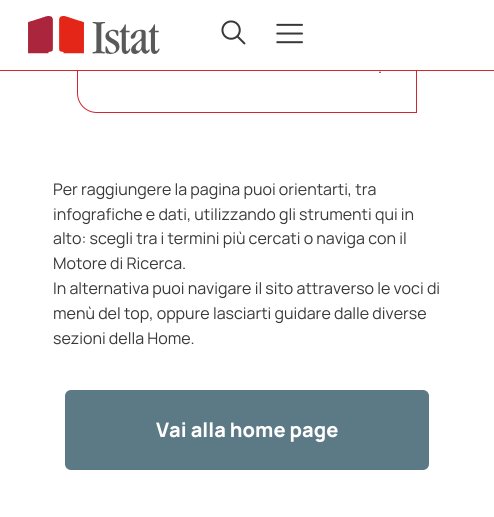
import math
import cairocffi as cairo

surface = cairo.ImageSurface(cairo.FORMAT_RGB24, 494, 517)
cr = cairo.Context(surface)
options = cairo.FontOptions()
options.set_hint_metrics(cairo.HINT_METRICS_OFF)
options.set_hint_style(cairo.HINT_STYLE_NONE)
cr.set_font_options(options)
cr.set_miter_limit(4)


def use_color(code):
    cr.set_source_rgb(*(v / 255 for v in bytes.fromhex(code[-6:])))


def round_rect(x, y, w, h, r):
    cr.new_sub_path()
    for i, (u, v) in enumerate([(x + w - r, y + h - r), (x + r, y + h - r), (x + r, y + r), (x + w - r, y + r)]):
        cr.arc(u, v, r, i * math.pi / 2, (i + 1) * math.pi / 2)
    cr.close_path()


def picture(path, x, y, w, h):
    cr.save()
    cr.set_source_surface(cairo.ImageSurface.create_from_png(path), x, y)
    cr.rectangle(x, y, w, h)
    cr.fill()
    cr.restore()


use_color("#ffffff")
cr.paint()
cr.new_path()
cr.move_to(77.5, -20.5)
cr.line_to(397, -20.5)
cr.curve_to(408, -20.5, 416.5, -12, 416.5, -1)
cr.line_to(416.5, 112.5)
cr.line_to(97, 112.5)
cr.curve_to(86, 112.5, 77.5, 104, 77.5, 93)
cr.close_path()
use_color("#d22630")
cr.set_line_width(1)
cr.stroke()
use_color("#ffffff")
cr.rectangle(77, 0, 340, 70)
cr.fill()
use_color("#d22630")
cr.rectangle(0, 70, 494, 1)
cr.fill()
picture("img1.png", 28, 16, 132, 38)
picture("img2.png", 221, 20, 25, 25)
picture("img3.png", 276, 23, 27, 21)
cr.select_font_face("Manrope")
cr.set_font_size(16)
use_color("#383838")
cr.move_to(378, 73)
cr.show_text(".")
cr.move_to(53, 195)
cr.show_text("Per raggiungere la pagina puoi orientarti, tra")
cr.move_to(53, 220)
cr.show_text("infografiche e dati, utilizzando gli strumenti qui in")
cr.move_to(53, 244)
cr.show_text("alto: scegli tra i termini più cercati o naviga con il")
cr.move_to(53, 269)
cr.show_text("Motore di Ricerca.")
cr.move_to(53, 294)
cr.show_text("In alternativa puoi navigare il sito attraverso le voci di")
cr.move_to(53, 319)
cr.show_text("menù del top, oppure lasciarti guidare dalle diverse")
cr.move_to(53, 344)
cr.show_text("sezioni della Home.")
use_color("#5c7986")
round_rect(65, 390, 364, 80, 6)
cr.fill()
cr.select_font_face("Manrope ExtraBold")
cr.set_font_size(20)
use_color("#ffffff")
cr.move_to(156, 437)
cr.show_text("Vai alla home page")
surface.write_to_png("result.png")
